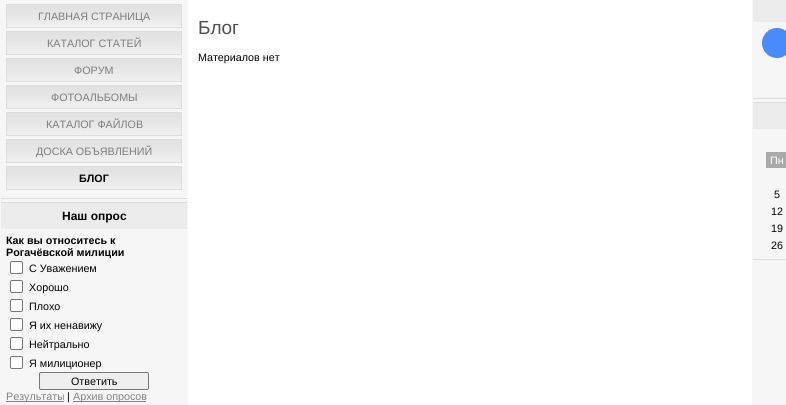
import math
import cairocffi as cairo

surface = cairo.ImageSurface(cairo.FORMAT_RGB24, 786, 405)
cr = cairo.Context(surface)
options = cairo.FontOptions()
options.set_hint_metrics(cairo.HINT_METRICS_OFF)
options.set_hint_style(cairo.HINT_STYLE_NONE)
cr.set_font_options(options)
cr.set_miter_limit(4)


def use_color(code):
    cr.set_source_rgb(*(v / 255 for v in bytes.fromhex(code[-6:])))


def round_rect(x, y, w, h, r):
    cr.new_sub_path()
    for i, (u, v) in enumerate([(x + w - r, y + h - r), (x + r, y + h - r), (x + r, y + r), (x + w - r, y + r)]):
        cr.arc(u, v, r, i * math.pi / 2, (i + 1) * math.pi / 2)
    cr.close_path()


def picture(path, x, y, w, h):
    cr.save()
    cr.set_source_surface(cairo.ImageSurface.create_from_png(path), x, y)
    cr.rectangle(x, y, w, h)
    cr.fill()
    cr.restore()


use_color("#ffffff")
cr.paint()
use_color("#f6f6f6")
cr.rectangle(0, 0, 188, 405)
cr.fill()
use_color("#dddddd")
cr.rectangle(1, 198, 186, 1)
cr.fill()
picture("img1.png", 7, 5, 174, 22)
cr.rectangle(6.5, 4.5, 175, 23)
cr.set_line_width(1)
cr.stroke()
cr.select_font_face("Liberation Sans")
cr.set_font_size(10.75)
use_color("#7d7d7d")
cr.move_to(38, 20)
cr.show_text("ГЛАВНАЯ СТРАНИЦА")
picture("img1.png", 7, 32, 174, 22)
cr.rectangle(6.5, 31.5, 175, 23)
use_color("#dddddd")
cr.stroke()
use_color("#7d7d7d")
cr.move_to(47, 47)
cr.show_text("КАТАЛОГ СТАТЕЙ")
picture("img1.png", 7, 59, 174, 22)
cr.rectangle(6.5, 58.5, 175, 23)
use_color("#dddddd")
cr.stroke()
use_color("#7d7d7d")
cr.move_to(74, 74)
cr.show_text("ФОРУМ")
picture("img1.png", 7, 86, 174, 22)
cr.rectangle(6.5, 85.5, 175, 23)
use_color("#dddddd")
cr.stroke()
use_color("#7d7d7d")
cr.move_to(51, 101)
cr.show_text("ФОТОАЛЬБОМЫ")
picture("img1.png", 7, 113, 174, 22)
cr.rectangle(6.5, 112.5, 175, 23)
use_color("#dddddd")
cr.stroke()
use_color("#7d7d7d")
cr.move_to(46, 128)
cr.show_text("КАТАЛОГ ФАЙЛОВ")
picture("img1.png", 7, 140, 174, 22)
cr.rectangle(6.5, 139.5, 175, 23)
use_color("#dddddd")
cr.stroke()
use_color("#7d7d7d")
cr.move_to(36, 155)
cr.show_text("ДОСКА ОБЪЯВЛЕНИЙ")
picture("img1.png", 7, 167, 174, 22)
cr.rectangle(6.5, 166.5, 175, 23)
use_color("#dddddd")
cr.stroke()
cr.select_font_face("Liberation Sans", cairo.FONT_SLANT_NORMAL, cairo.FONT_WEIGHT_BOLD)
use_color("#000000")
cr.move_to(79, 182)
cr.show_text("БЛОГ")
use_color("#dddddd")
cr.rectangle(1, 202, 186, 1)
cr.fill()
use_color("#ebebeb")
cr.rectangle(1, 203, 186, 26)
cr.fill()
cr.set_font_size(12)
use_color("#000000")
cr.move_to(62, 220)
cr.show_text("Наш опрос")
cr.set_font_size(10.75)
cr.move_to(6, 244)
cr.show_text("Как вы относитесь к")
cr.move_to(6, 256)
cr.show_text("Рогачёвской милиции")
use_color("#ffffff")
round_rect(10.5, 261.5, 12, 12, 1.5)
cr.fill_preserve()
use_color("#767676")
cr.stroke()
cr.select_font_face("Liberation Sans")
use_color("#000000")
cr.move_to(29, 272)
cr.show_text("С Уважением")
use_color("#ffffff")
round_rect(10.5, 280.5, 12, 12, 1.5)
cr.fill_preserve()
use_color("#767676")
cr.stroke()
use_color("#000000")
cr.move_to(29, 291)
cr.show_text("Хорошо")
use_color("#ffffff")
round_rect(10.5, 299.5, 12, 12, 1.5)
cr.fill_preserve()
use_color("#767676")
cr.stroke()
use_color("#000000")
cr.move_to(29, 310)
cr.show_text("Плохо")
use_color("#ffffff")
round_rect(10.5, 318.5, 12, 12, 1.5)
cr.fill_preserve()
use_color("#767676")
cr.stroke()
use_color("#000000")
cr.move_to(29, 329)
cr.show_text("Я их ненавижу")
use_color("#ffffff")
round_rect(10.5, 337.5, 12, 12, 1.5)
cr.fill_preserve()
use_color("#767676")
cr.stroke()
use_color("#000000")
cr.move_to(29, 348)
cr.show_text("Нейтрально")
use_color("#ffffff")
round_rect(10.5, 356.5, 12, 12, 1.5)
cr.fill_preserve()
use_color("#767676")
cr.stroke()
use_color("#000000")
cr.move_to(29, 367)
cr.show_text("Я милиционер")
use_color("#efefef")
round_rect(39.5, 372.5, 109, 17, 1.5)
cr.fill_preserve()
use_color("#767676")
cr.stroke()
use_color("#000000")
cr.move_to(71, 385)
cr.show_text("Ответить")
use_color("#838383")
cr.rectangle(6, 401, 58, 1)
cr.fill()
cr.move_to(6, 400)
cr.show_text("Результаты")
use_color("#000000")
cr.move_to(67, 400)
cr.show_text("|")
use_color("#838383")
cr.rectangle(73, 401, 73, 1)
cr.fill()
cr.move_to(73, 400)
cr.show_text("Архив опросов")
cr.set_font_size(19)
use_color("#505050")
cr.move_to(198, 34)
cr.show_text("Блог")
cr.set_font_size(10.75)
use_color("#000000")
cr.move_to(198, 61)
cr.show_text("Материалов нет")
use_color("#f6f6f6")
cr.rectangle(752, 0, 34, 405)
cr.fill()
use_color("#dddddd")
cr.rectangle(753, 98, 33, 1)
cr.fill()
use_color("#ebebeb")
cr.rectangle(753, 0, 33, 22)
cr.fill()
use_color("#498bfa")
cr.arc(777, 43, 15, 0, 2 * math.pi)
cr.fill()
use_color("#dddddd")
cr.rectangle(753, 102, 33, 1)
cr.fill()
cr.rectangle(753, 259, 33, 1)
cr.fill()
use_color("#ebebeb")
cr.rectangle(753, 103, 33, 26)
cr.fill()
use_color("#a9a9a9")
cr.rectangle(766, 152, 20, 16)
cr.fill()
use_color("#ffffff")
cr.move_to(770, 164)
cr.show_text("Пн")
use_color("#000000")
cr.move_to(774, 198)
cr.show_text("5")
cr.move_to(771, 215)
cr.show_text("12")
cr.move_to(771, 232)
cr.show_text("19")
cr.move_to(771, 249)
cr.show_text("26")
surface.write_to_png("result.png")
